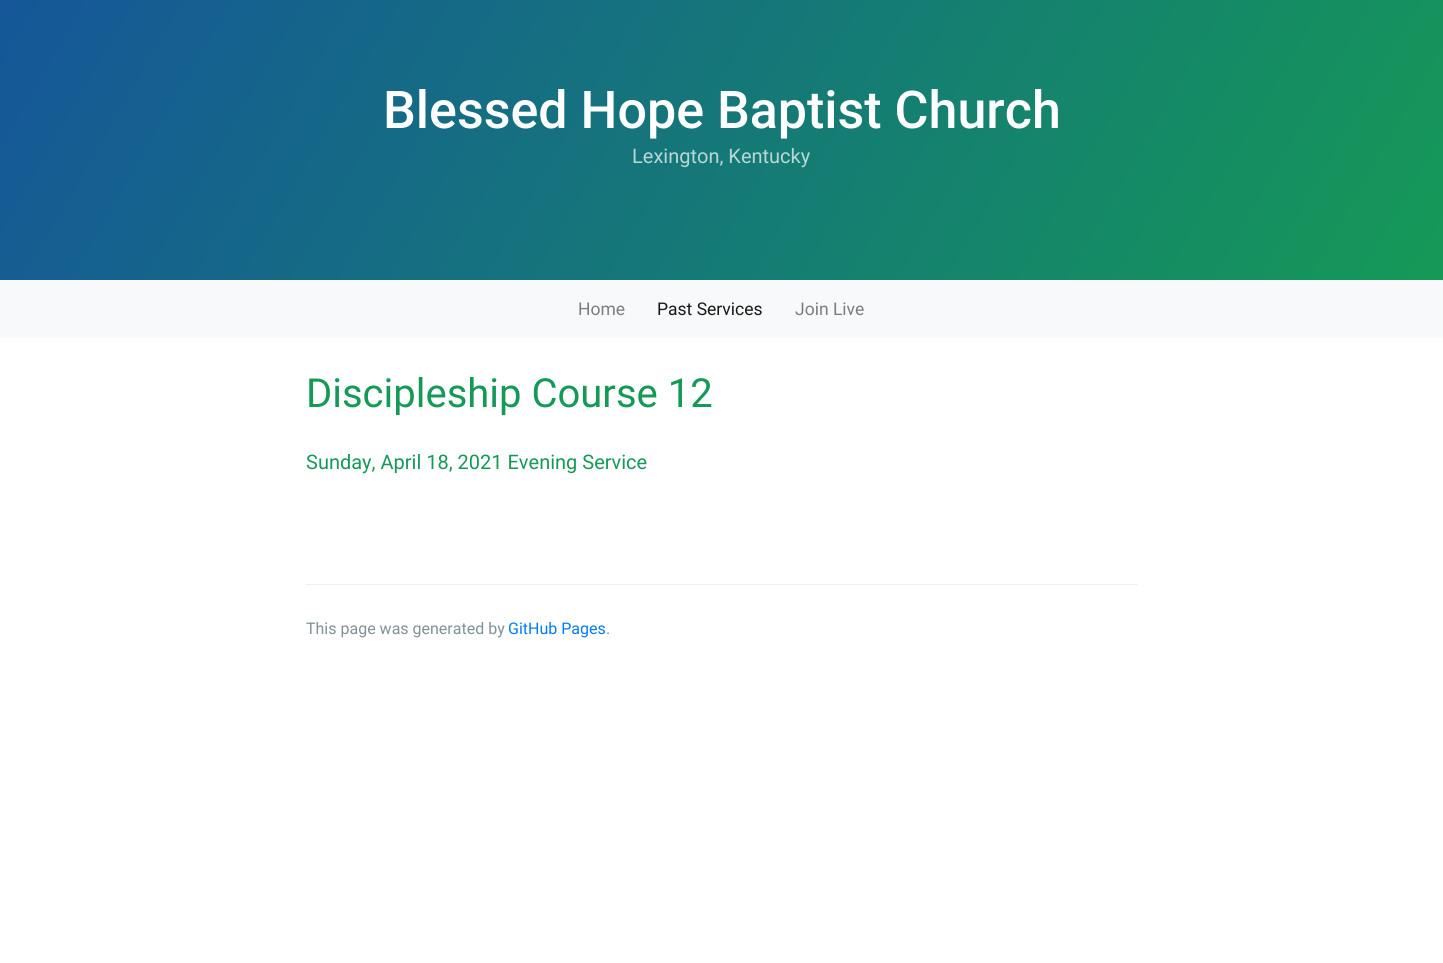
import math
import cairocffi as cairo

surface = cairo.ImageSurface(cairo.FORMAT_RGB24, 1443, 963)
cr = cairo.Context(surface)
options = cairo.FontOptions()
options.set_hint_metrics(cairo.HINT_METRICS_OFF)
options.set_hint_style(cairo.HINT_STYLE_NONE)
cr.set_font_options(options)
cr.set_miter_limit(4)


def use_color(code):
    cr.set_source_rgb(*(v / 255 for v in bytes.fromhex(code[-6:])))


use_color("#ffffff")
cr.paint()
gradient = cairo.LinearGradient(120, -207, 1323, 487)
gradient.add_color_stop_rgba(0, 0.082, 0.341, 0.6, 1)
gradient.add_color_stop_rgba(1, 0.082, 0.6, 0.341, 1)
cr.set_source(gradient)
cr.rectangle(0, 0, 1443, 280)
cr.fill()
cr.select_font_face("Roboto Medium")
cr.set_font_size(52)
use_color("#ffffff")
cr.move_to(383, 128)
cr.show_text("Blessed Hope Baptist Church")
cr.select_font_face("Roboto")
cr.set_font_size(20)
use_color("#b9d7d6")
cr.move_to(632, 163)
cr.show_text("Lexington, Kentucky")
use_color("#f8f9fa")
cr.rectangle(0, 280, 1443, 58)
cr.fill()
cr.set_font_size(17.5)
use_color("#7c7d7d")
cr.move_to(578, 315)
cr.show_text("Home")
use_color("#191919")
cr.move_to(657, 315)
cr.show_text("Past Services")
use_color("#7c7d7d")
cr.move_to(795, 315)
cr.show_text("Join Live")
cr.set_font_size(40)
use_color("#159957")
cr.move_to(306, 407)
cr.show_text("Discipleship Course 12")
cr.set_font_size(20)
cr.move_to(306, 469)
cr.show_text("Sunday, April 18, 2021 Evening Service")
use_color("#eff0f1")
cr.rectangle(306, 584, 832, 1)
cr.fill()
cr.set_font_size(16)
use_color("#819198")
cr.move_to(306, 634)
cr.show_text("This page was generated by")
use_color("#007bff")
cr.move_to(508, 634)
cr.show_text("GitHub Pages")
use_color("#819198")
cr.move_to(606, 634)
cr.show_text(".")
surface.write_to_png("result.png")
